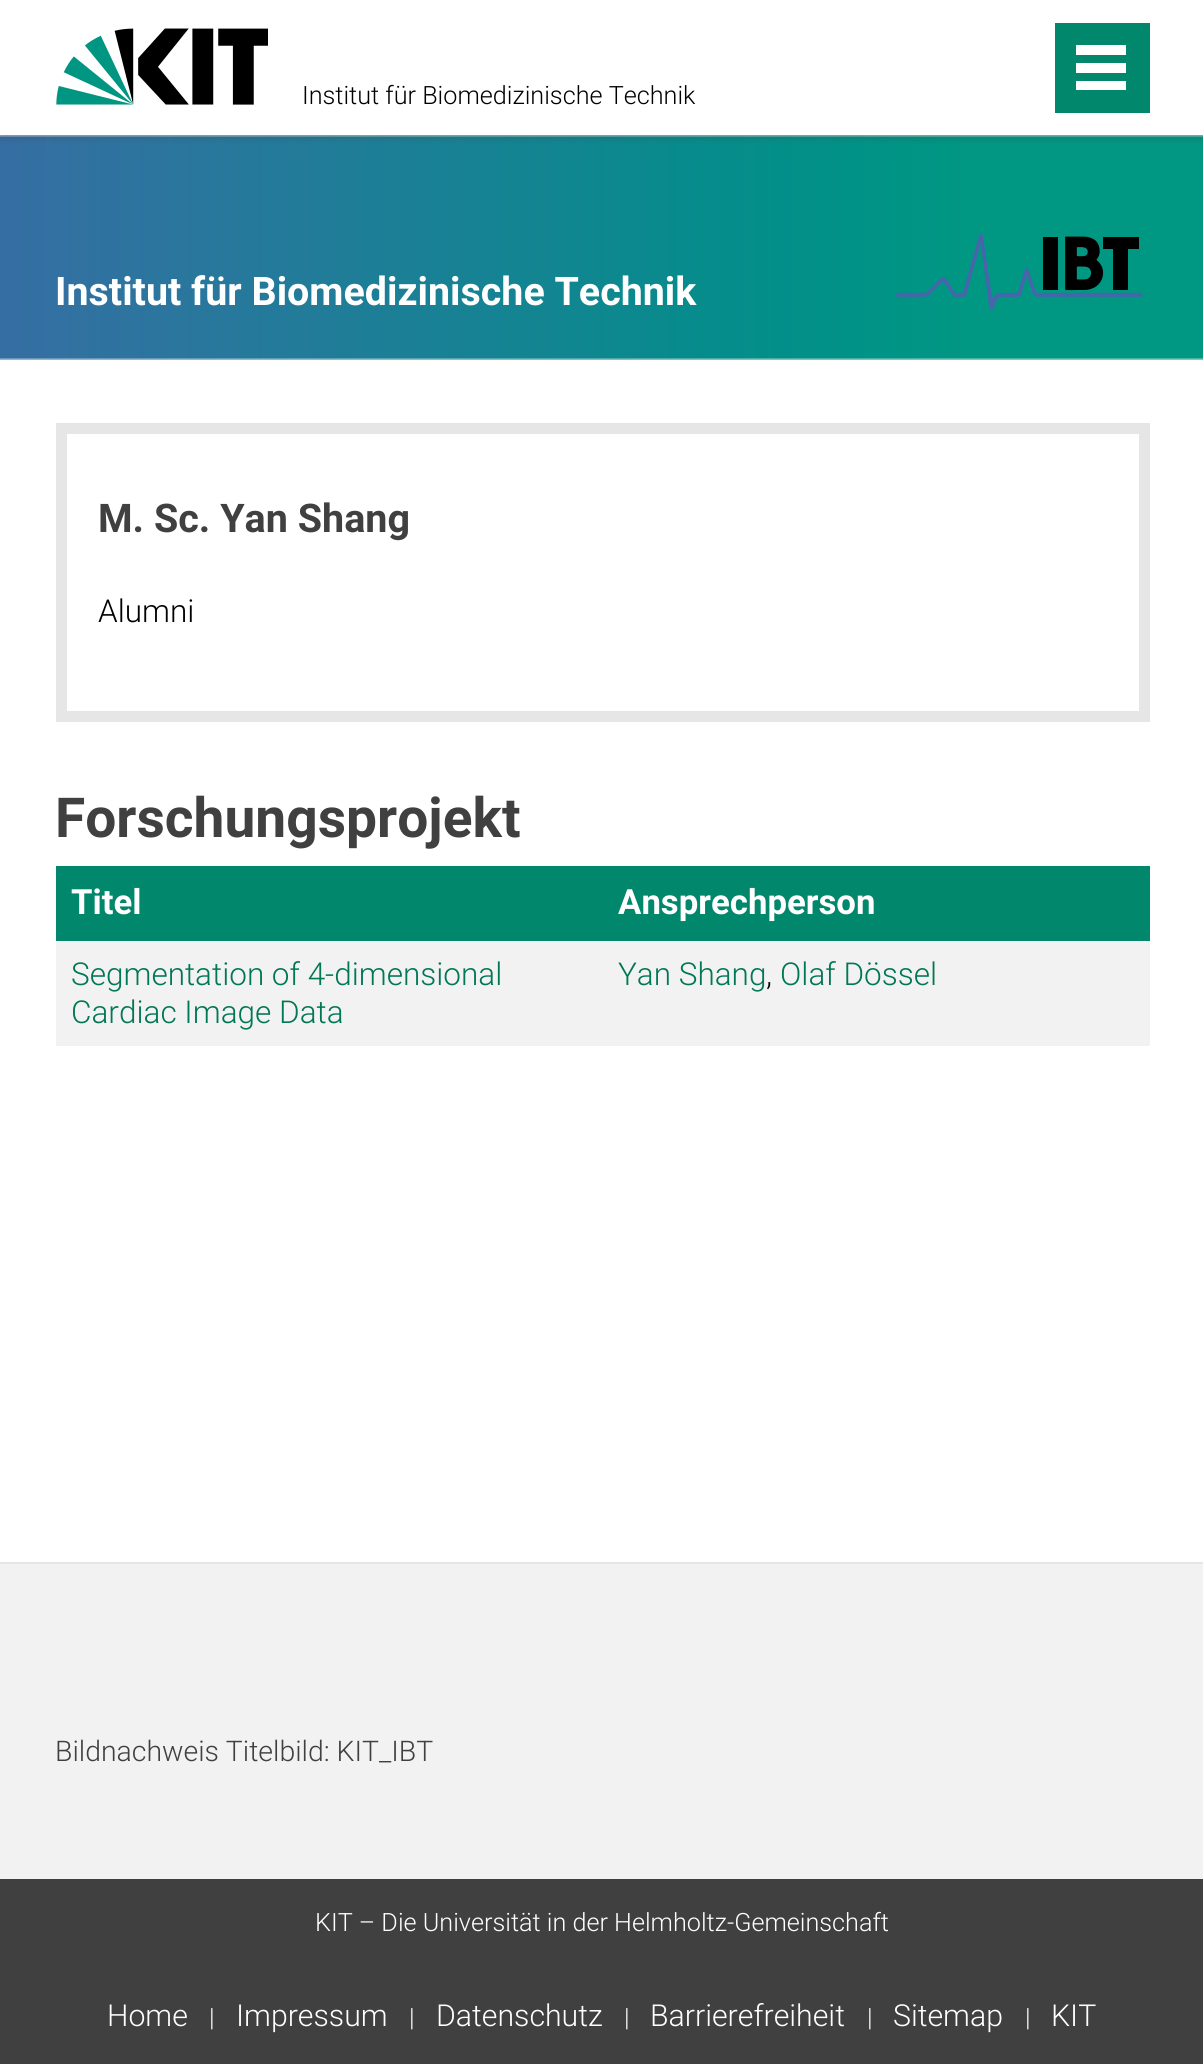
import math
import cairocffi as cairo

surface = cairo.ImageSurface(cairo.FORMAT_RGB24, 1203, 2064)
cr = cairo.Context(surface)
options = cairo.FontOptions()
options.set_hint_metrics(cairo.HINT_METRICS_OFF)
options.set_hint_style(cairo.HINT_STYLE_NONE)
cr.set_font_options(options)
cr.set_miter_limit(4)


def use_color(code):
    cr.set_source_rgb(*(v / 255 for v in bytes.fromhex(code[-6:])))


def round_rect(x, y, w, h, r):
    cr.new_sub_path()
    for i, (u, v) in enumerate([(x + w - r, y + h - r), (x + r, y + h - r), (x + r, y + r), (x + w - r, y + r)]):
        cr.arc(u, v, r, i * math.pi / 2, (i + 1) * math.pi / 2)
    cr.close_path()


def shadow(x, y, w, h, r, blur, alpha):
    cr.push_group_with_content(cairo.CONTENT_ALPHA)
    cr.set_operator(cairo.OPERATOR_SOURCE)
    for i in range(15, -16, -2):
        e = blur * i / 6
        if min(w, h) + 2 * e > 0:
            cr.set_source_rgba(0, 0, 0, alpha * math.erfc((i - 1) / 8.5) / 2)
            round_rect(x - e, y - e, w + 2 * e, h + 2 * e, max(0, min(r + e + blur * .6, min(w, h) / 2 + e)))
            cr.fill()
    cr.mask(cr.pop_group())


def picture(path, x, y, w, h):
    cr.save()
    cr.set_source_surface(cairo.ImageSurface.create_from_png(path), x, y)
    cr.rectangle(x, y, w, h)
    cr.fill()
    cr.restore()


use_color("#ffffff")
cr.paint()
picture("img2.png", 0, 135, 1203, 225)
cr.save()
cr.rectangle(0, 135, 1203, 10)
cr.clip()
use_color("#404040")
shadow(0, 0, 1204, 135, 0, 5.5, 0.5)
cr.restore()
picture("img1.png", 56, 28, 212, 77)
cr.select_font_face("Roboto Light")
cr.set_font_size(25.2)
use_color("#000000")
cr.move_to(302, 104)
cr.show_text("Institut für Biomedizinische Technik")
use_color("#00876c")
cr.rectangle(1055, 23, 95, 90)
cr.fill()
use_color("#ffffff")
cr.rectangle(1076, 81, 50, 9)
cr.fill()
cr.rectangle(1076, 63, 50, 10)
cr.fill()
cr.rectangle(1076, 45, 50, 10)
cr.fill()
cr.select_font_face("Roboto", cairo.FONT_SLANT_NORMAL, cairo.FONT_WEIGHT_BOLD)
cr.set_font_size(39.4)
cr.move_to(55, 305)
cr.show_text("Institut für Biomedizinische Technik")
picture("img3.png", 895, 233, 248, 77)
cr.rectangle(61.5, 428.5, 1083, 288)
use_color("#e6e6e6")
cr.set_line_width(11)
cr.stroke()
cr.set_font_size(39.5)
use_color("#404040")
cr.move_to(98, 532)
cr.show_text("M. Sc. Yan Shang")
cr.select_font_face("Roboto Light")
cr.set_font_size(31.5)
use_color("#000000")
cr.move_to(98, 622)
cr.show_text("Alumni")
cr.select_font_face("Roboto", cairo.FONT_SLANT_NORMAL, cairo.FONT_WEIGHT_BOLD)
cr.set_font_size(55.1)
use_color("#404040")
cr.move_to(55, 837)
cr.show_text("Forschungsprojekt")
use_color("#00876c")
cr.rectangle(56, 866, 1094, 75)
cr.fill()
cr.set_font_size(34.75)
use_color("#ffffff")
cr.move_to(71, 914)
cr.show_text("Titel")
cr.move_to(618, 914)
cr.show_text("Ansprechperson")
use_color("#f2f2f2")
cr.rectangle(56, 941, 1094, 105)
cr.fill()
cr.select_font_face("Roboto Light")
cr.set_font_size(31.5)
use_color("#007755")
cr.move_to(71, 985)
cr.show_text("Segmentation of 4-dimensional")
cr.move_to(71, 1023)
cr.show_text("Cardiac Image Data")
cr.move_to(618, 985)
cr.show_text("Yan Shang")
use_color("#000000")
cr.move_to(766, 985)
cr.show_text(",")
use_color("#007755")
cr.move_to(780, 985)
cr.show_text("Olaf Dössel")
use_color("#f2f2f2")
cr.rectangle(0, 1564, 1203, 315)
cr.fill()
use_color("#e6e6e6")
cr.rectangle(0, 1562, 1203, 2)
cr.fill()
cr.set_font_size(28.4)
use_color("#404040")
cr.move_to(55, 1761)
cr.show_text("Bildnachweis Titelbild: KIT_IBT")
cr.rectangle(0, 1879, 1203, 185)
cr.fill()
cr.set_font_size(25.2)
use_color("#ffffff")
cr.move_to(315, 1931)
cr.show_text("KIT – Die Universität in der Helmholtz-Gemeinschaft")
cr.set_font_size(30.25)
cr.move_to(107, 2026)
cr.show_text("Home")
cr.set_font_size(25.2)
cr.move_to(209, 2026)
cr.show_text("|")
cr.set_font_size(30.25)
cr.move_to(236, 2026)
cr.show_text("Impressum")
cr.set_font_size(25.2)
cr.move_to(409, 2026)
cr.show_text("|")
cr.set_font_size(30.25)
cr.move_to(436, 2026)
cr.show_text("Datenschutz")
cr.set_font_size(25.2)
cr.move_to(624, 2026)
cr.show_text("|")
cr.set_font_size(30.25)
cr.move_to(650, 2026)
cr.show_text("Barrierefreiheit")
cr.set_font_size(25.2)
cr.move_to(867, 2026)
cr.show_text("|")
cr.set_font_size(30.25)
cr.move_to(893, 2026)
cr.show_text("Sitemap")
cr.set_font_size(25.2)
cr.move_to(1025, 2026)
cr.show_text("|")
cr.set_font_size(30.25)
cr.move_to(1051, 2026)
cr.show_text("KIT")
surface.write_to_png("result.png")
